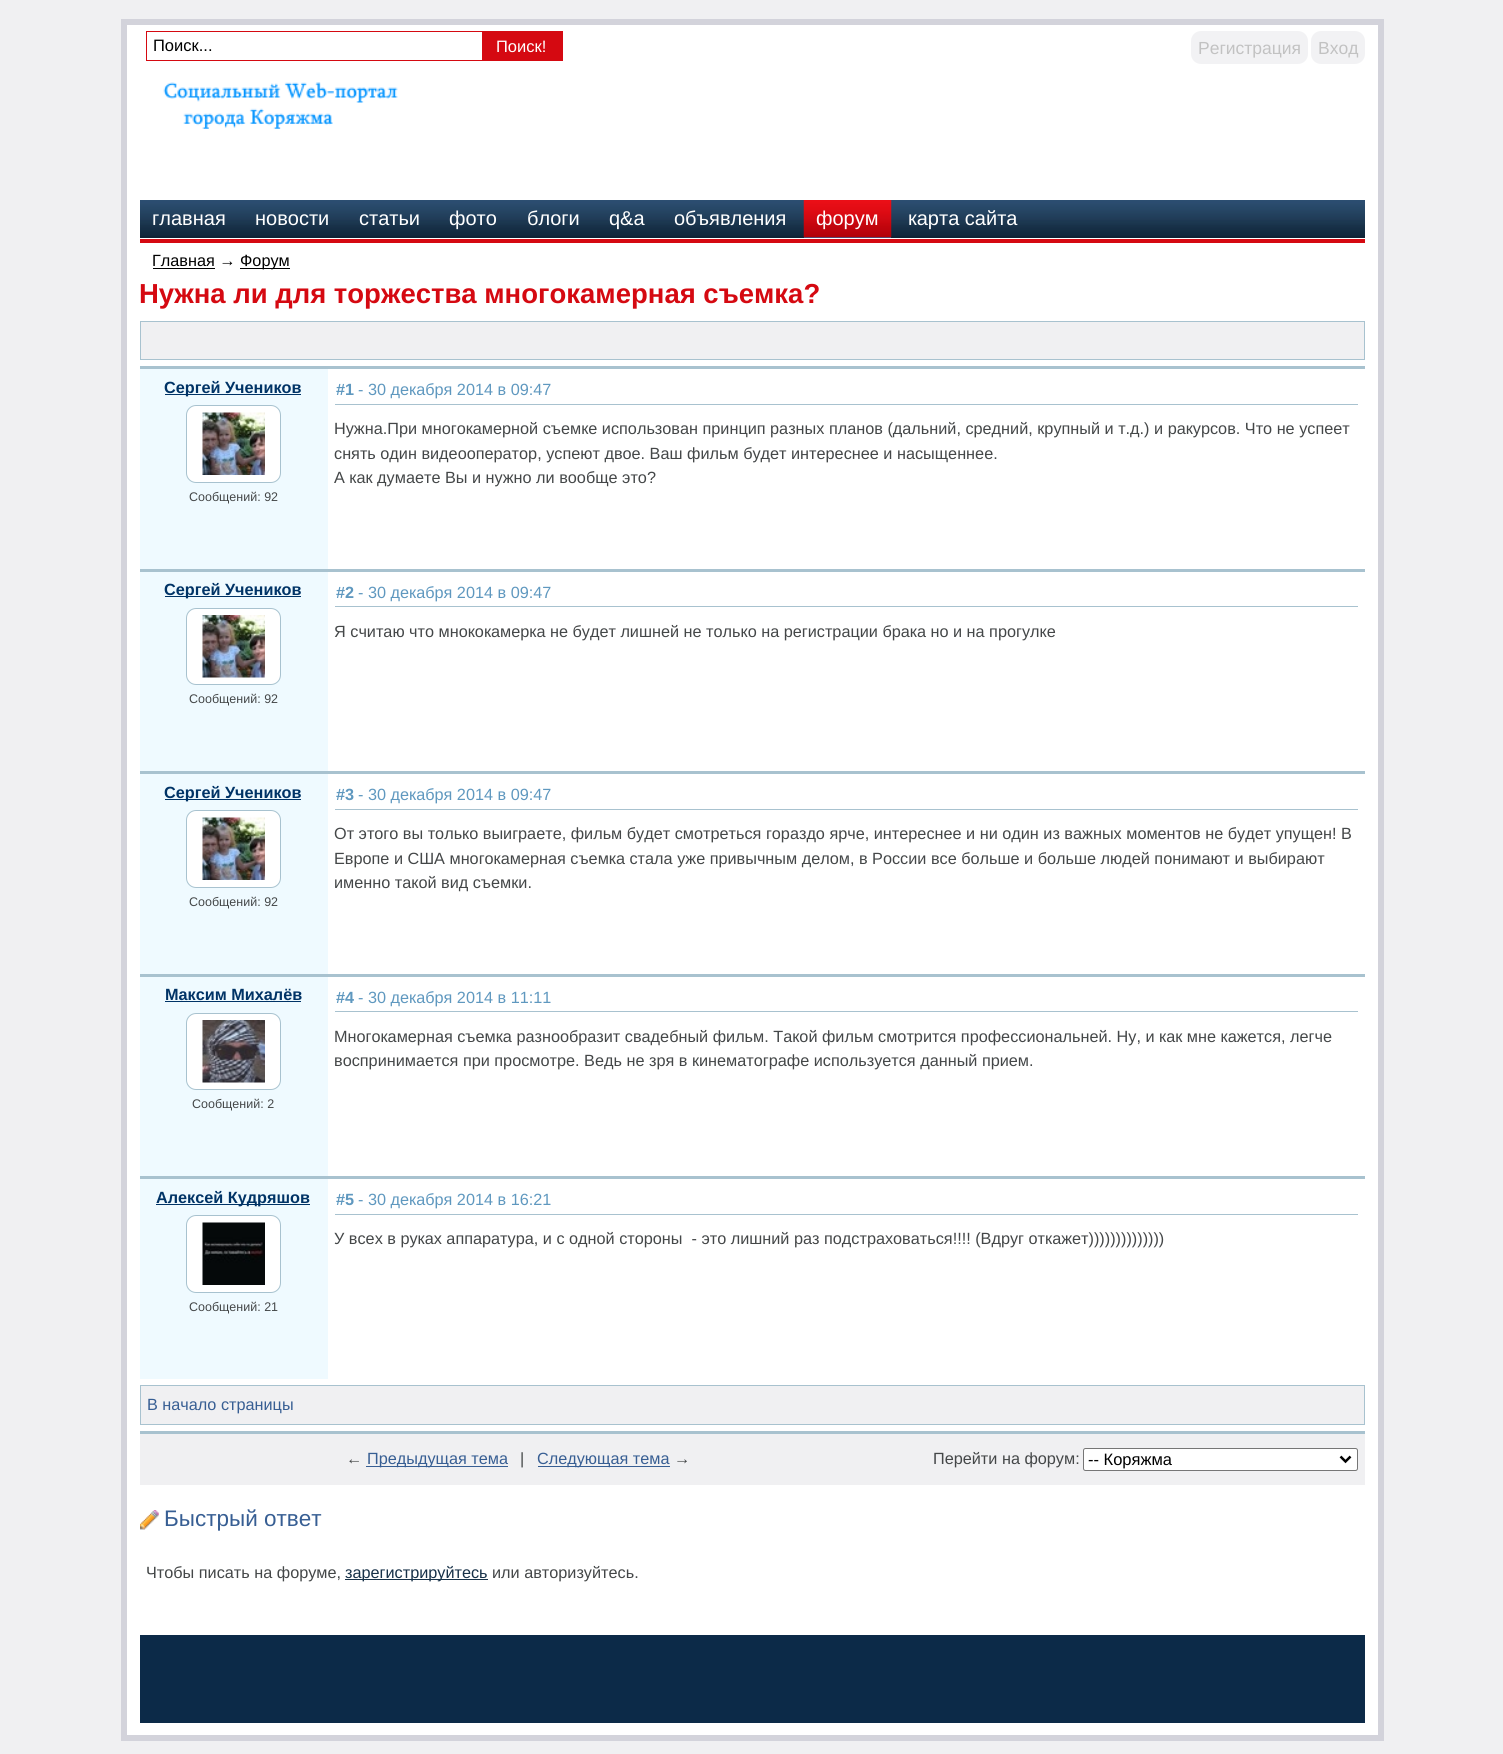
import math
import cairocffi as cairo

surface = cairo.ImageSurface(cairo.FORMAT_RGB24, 1503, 1754)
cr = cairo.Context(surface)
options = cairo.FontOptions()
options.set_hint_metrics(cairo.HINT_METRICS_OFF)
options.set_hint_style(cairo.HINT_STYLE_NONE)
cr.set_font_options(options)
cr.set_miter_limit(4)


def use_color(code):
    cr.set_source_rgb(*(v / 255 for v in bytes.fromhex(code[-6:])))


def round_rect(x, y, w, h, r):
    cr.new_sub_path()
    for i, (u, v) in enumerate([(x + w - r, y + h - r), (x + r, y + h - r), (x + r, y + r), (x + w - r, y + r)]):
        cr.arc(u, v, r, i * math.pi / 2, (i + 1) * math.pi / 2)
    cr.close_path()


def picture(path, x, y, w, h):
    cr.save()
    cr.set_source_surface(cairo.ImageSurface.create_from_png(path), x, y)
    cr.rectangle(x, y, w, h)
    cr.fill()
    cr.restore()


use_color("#f0f0f2")
cr.paint()
use_color("#ffffff")
cr.rectangle(124, 22, 1257, 1716)
cr.fill_preserve()
use_color("#d3d3db")
cr.set_line_width(6)
cr.stroke()
cr.rectangle(146.5, 31.5, 336, 29)
use_color("#d50911")
cr.set_line_width(1)
cr.stroke()
cr.select_font_face("Liberation Sans")
cr.set_font_size(16.5)
use_color("#000000")
cr.move_to(153, 51)
cr.show_text("Поиск...")
use_color("#d50911")
cr.rectangle(483, 31, 80, 30)
cr.fill()
use_color("#ffffff")
cr.move_to(496, 52)
cr.show_text("Поиск!")
use_color("#f2f2f4")
round_rect(1191, 31, 117, 33, 10)
cr.fill()
cr.set_font_size(17.5)
use_color("#c2c2c2")
cr.move_to(1198, 54)
cr.show_text("Регистрация")
use_color("#f2f2f4")
round_rect(1311, 31, 54, 33, 10)
cr.fill()
use_color("#c2c2c2")
cr.move_to(1318, 54)
cr.show_text("Вход")
picture("img1.png", 163, 82, 235, 47)
use_color("#0e2335")
cr.rectangle(140, 236, 1225, 2)
cr.fill()
picture("img2.png", 140, 200, 1225, 36)
cr.set_font_size(20)
use_color("#ffffff")
cr.move_to(152, 225)
cr.show_text("главная")
cr.move_to(255, 225)
cr.show_text("новости")
cr.move_to(359, 225)
cr.show_text("статьи")
cr.move_to(449, 225)
cr.show_text("фото")
cr.move_to(527, 225)
cr.show_text("блоги")
cr.move_to(609, 225)
cr.show_text("q&a")
cr.move_to(674, 225)
cr.show_text("объявления")
use_color("#375e93")
cr.rectangle(804, 237, 87, 1)
cr.fill()
picture("img3.png", 803, 200, 89, 38)
use_color("#ffffff")
cr.move_to(816, 225)
cr.show_text("форум")
cr.move_to(908, 225)
cr.show_text("карта сайта")
use_color("#d50911")
cr.rectangle(140, 239, 1225, 4)
cr.fill()
cr.set_font_size(16.25)
use_color("#000000")
cr.move_to(152, 266)
cr.show_text("Главная →")
cr.rectangle(153, 268, 62, 1)
cr.fill()
cr.rectangle(240, 268, 50, 1)
cr.fill()
cr.move_to(240, 266)
cr.show_text("Форум")
cr.select_font_face("Liberation Sans", cairo.FONT_SLANT_NORMAL, cairo.FONT_WEIGHT_BOLD)
cr.set_font_size(27.5)
use_color("#d50911")
cr.move_to(139, 303)
cr.show_text("Нужна ли для торжества многокамерная съемка?")
use_color("#f0f0f2")
cr.rectangle(141, 322, 1223, 37)
cr.fill()
use_color("#a8c2cf")
cr.rectangle(140, 321, 1225, 1)
cr.fill()
cr.rectangle(1364, 321, 1, 39)
cr.fill()
cr.rectangle(140, 359, 1225, 1)
cr.fill()
cr.rectangle(140, 321, 1, 39)
cr.fill()
use_color("#effaff")
cr.rectangle(140, 369, 188, 200)
cr.fill()
use_color("#003366")
cr.rectangle(165, 394, 136, 1)
cr.fill()
cr.set_font_size(16.25)
cr.move_to(164, 393)
cr.show_text("Сергей Учеников")
use_color("#ffffff")
round_rect(186.5, 405.5, 94, 77, 9.5)
cr.fill_preserve()
use_color("#a8c2cf")
cr.stroke()
picture("img4.png", 202, 412, 63, 63)
cr.select_font_face("Liberation Sans")
cr.set_font_size(12.5)
use_color("#444748")
cr.move_to(189, 501)
cr.show_text("Сообщений: 92")
use_color("#a8c2cf")
cr.rectangle(140, 366, 1225, 3)
cr.fill()
cr.rectangle(335, 404, 1023, 1)
cr.fill()
cr.select_font_face("Liberation Sans", cairo.FONT_SLANT_NORMAL, cairo.FONT_WEIGHT_BOLD)
cr.set_font_size(16.25)
use_color("#5f98bf")
cr.move_to(336, 395)
cr.show_text("#1")
cr.select_font_face("Liberation Sans")
cr.move_to(358, 395)
cr.show_text("- 30 декабря 2014 в 09:47")
use_color("#444748")
cr.move_to(334, 434)
cr.show_text("Нужна.При многокамерной съемке использован принцип разных планов (дальний, средний, крупный и т.д.) и ракурсов. Что не успеет")
cr.move_to(334, 459)
cr.show_text("снять один видеооператор, успеют двое. Ваш фильм будет интереснее и насыщеннее.")
cr.move_to(334, 483)
cr.show_text("А как думаете Вы и нужно ли вообще это?")
use_color("#effaff")
cr.rectangle(140, 572, 188, 199)
cr.fill()
use_color("#003366")
cr.rectangle(165, 596, 136, 1)
cr.fill()
cr.select_font_face("Liberation Sans", cairo.FONT_SLANT_NORMAL, cairo.FONT_WEIGHT_BOLD)
cr.move_to(164, 595)
cr.show_text("Сергей Учеников")
use_color("#ffffff")
round_rect(186.5, 608.5, 94, 76, 9.5)
cr.fill_preserve()
use_color("#a8c2cf")
cr.stroke()
picture("img5.png", 202, 615, 63, 63)
cr.select_font_face("Liberation Sans")
cr.set_font_size(12.5)
use_color("#444748")
cr.move_to(189, 703)
cr.show_text("Сообщений: 92")
use_color("#a8c2cf")
cr.rectangle(140, 569, 1225, 3)
cr.fill()
cr.rectangle(335, 606, 1023, 1)
cr.fill()
cr.select_font_face("Liberation Sans", cairo.FONT_SLANT_NORMAL, cairo.FONT_WEIGHT_BOLD)
cr.set_font_size(16.25)
use_color("#5f98bf")
cr.move_to(336, 598)
cr.show_text("#2")
cr.select_font_face("Liberation Sans")
cr.move_to(358, 598)
cr.show_text("- 30 декабря 2014 в 09:47")
use_color("#444748")
cr.move_to(334, 637)
cr.show_text("Я считаю что мнококамерка не будет лишней не только на регистрации брака но и на прогулке")
use_color("#effaff")
cr.rectangle(140, 774, 188, 200)
cr.fill()
use_color("#003366")
cr.rectangle(165, 799, 136, 1)
cr.fill()
cr.select_font_face("Liberation Sans", cairo.FONT_SLANT_NORMAL, cairo.FONT_WEIGHT_BOLD)
cr.move_to(164, 798)
cr.show_text("Сергей Учеников")
use_color("#ffffff")
round_rect(186.5, 810.5, 94, 77, 9.5)
cr.fill_preserve()
use_color("#a8c2cf")
cr.stroke()
picture("img4.png", 202, 817, 63, 63)
cr.select_font_face("Liberation Sans")
cr.set_font_size(12.5)
use_color("#444748")
cr.move_to(189, 906)
cr.show_text("Сообщений: 92")
use_color("#a8c2cf")
cr.rectangle(140, 771, 1225, 3)
cr.fill()
cr.rectangle(335, 809, 1023, 1)
cr.fill()
cr.select_font_face("Liberation Sans", cairo.FONT_SLANT_NORMAL, cairo.FONT_WEIGHT_BOLD)
cr.set_font_size(16.25)
use_color("#5f98bf")
cr.move_to(336, 800)
cr.show_text("#3")
cr.select_font_face("Liberation Sans")
cr.move_to(358, 800)
cr.show_text("- 30 декабря 2014 в 09:47")
use_color("#444748")
cr.move_to(334, 839)
cr.show_text("От этого вы только выиграете, фильм будет смотреться гораздо ярче, интереснее и ни один из важных моментов не будет упущен! В")
cr.move_to(334, 864)
cr.show_text("Европе и США многокамерная съемка стала уже привычным делом, в России все больше и больше людей понимают и выбирают")
cr.move_to(334, 888)
cr.show_text("именно такой вид съемки.")
use_color("#effaff")
cr.rectangle(140, 977, 188, 199)
cr.fill()
cr.select_font_face("Liberation Sans", cairo.FONT_SLANT_NORMAL, cairo.FONT_WEIGHT_BOLD)
use_color("#003366")
cr.move_to(165, 1000)
cr.show_text("Максим Михалёв")
cr.rectangle(165, 1001, 136, 1)
cr.fill()
use_color("#ffffff")
round_rect(186.5, 1013.5, 94, 76, 9.5)
cr.fill_preserve()
use_color("#a8c2cf")
cr.stroke()
picture("img6.png", 202, 1020, 63, 63)
cr.select_font_face("Liberation Sans")
cr.set_font_size(12.5)
use_color("#444748")
cr.move_to(192, 1108)
cr.show_text("Сообщений: 2")
use_color("#a8c2cf")
cr.rectangle(140, 974, 1225, 3)
cr.fill()
cr.rectangle(335, 1011, 1023, 1)
cr.fill()
cr.select_font_face("Liberation Sans", cairo.FONT_SLANT_NORMAL, cairo.FONT_WEIGHT_BOLD)
cr.set_font_size(16.25)
use_color("#5f98bf")
cr.move_to(336, 1003)
cr.show_text("#4")
cr.select_font_face("Liberation Sans")
cr.move_to(358, 1003)
cr.show_text("- 30 декабря 2014 в 11:11")
use_color("#444748")
cr.move_to(334, 1042)
cr.show_text("Многокамерная съемка разнообразит свадебный фильм. Такой фильм смотрится профессиональней. Ну, и как мне кажется, легче")
cr.move_to(334, 1066)
cr.show_text("воспринимается при просмотре. Ведь не зря в кинематографе используется данный прием.")
use_color("#effaff")
cr.rectangle(140, 1179, 188, 200)
cr.fill()
use_color("#003366")
cr.rectangle(156, 1204, 154, 1)
cr.fill()
cr.select_font_face("Liberation Sans", cairo.FONT_SLANT_NORMAL, cairo.FONT_WEIGHT_BOLD)
cr.move_to(156, 1203)
cr.show_text("Алексей Кудряшов")
use_color("#ffffff")
round_rect(186.5, 1215.5, 94, 77, 9.5)
cr.fill_preserve()
use_color("#a8c2cf")
cr.stroke()
picture("img7.png", 202, 1222, 63, 63)
cr.select_font_face("Liberation Sans")
cr.set_font_size(12.5)
use_color("#444748")
cr.move_to(189, 1311)
cr.show_text("Сообщений: 21")
use_color("#a8c2cf")
cr.rectangle(140, 1176, 1225, 3)
cr.fill()
cr.rectangle(335, 1214, 1023, 1)
cr.fill()
cr.select_font_face("Liberation Sans", cairo.FONT_SLANT_NORMAL, cairo.FONT_WEIGHT_BOLD)
cr.set_font_size(16.25)
use_color("#5f98bf")
cr.move_to(336, 1205)
cr.show_text("#5")
cr.select_font_face("Liberation Sans")
cr.move_to(358, 1205)
cr.show_text("- 30 декабря 2014 в 16:21")
use_color("#444748")
cr.move_to(334, 1244)
cr.show_text("У всех в руках аппаратура, и с одной стороны  - это лишний раз подстраховаться!!!! (Вдруг откажет))))))))))))))")
use_color("#f0f0f2")
cr.rectangle(141, 1386, 1223, 38)
cr.fill()
use_color("#a8c2cf")
cr.rectangle(140, 1385, 1225, 1)
cr.fill()
cr.rectangle(1364, 1385, 1, 40)
cr.fill()
cr.rectangle(140, 1424, 1225, 1)
cr.fill()
cr.rectangle(140, 1385, 1, 40)
cr.fill()
use_color("#375e93")
cr.move_to(147, 1410)
cr.show_text("В начало страницы")
use_color("#f0f0f2")
cr.rectangle(140, 1434, 1225, 51)
cr.fill()
use_color("#a8c2cf")
cr.rectangle(140, 1431, 1225, 3)
cr.fill()
use_color("#444748")
cr.move_to(346, 1464)
cr.show_text("←")
use_color("#375e93")
cr.rectangle(366, 1466, 142, 1)
cr.fill()
cr.move_to(367, 1464)
cr.show_text("Предыдущая тема")
use_color("#444748")
cr.move_to(520, 1464)
cr.show_text("|")
use_color("#375e93")
cr.rectangle(538, 1466, 132, 1)
cr.fill()
cr.move_to(537, 1464)
cr.show_text("Следующая тема")
use_color("#444748")
cr.move_to(674, 1464)
cr.show_text("→")
cr.move_to(933, 1464)
cr.show_text("Перейти на форум:")
use_color("#ffffff")
round_rect(1083.5, 1448.5, 274, 22, 2)
cr.fill_preserve()
use_color("#767676")
cr.stroke()
cr.new_path()
cr.move_to(1340.5, 1456.5)
cr.line_to(1345.5, 1461.5)
cr.line_to(1350.5, 1456.5)
use_color("#000000")
cr.set_line_width(2.5)
cr.stroke()
cr.set_font_size(16.5)
cr.move_to(1088, 1465)
cr.show_text("-- Коряжма")
picture("img8.png", 140, 1510, 19, 20)
cr.set_font_size(22.5)
use_color("#375e93")
cr.move_to(164, 1526)
cr.show_text("Быстрый ответ")
cr.set_font_size(16.25)
use_color("#444748")
cr.move_to(146, 1578)
cr.show_text("Чтобы писать на форуме,")
use_color("#173148")
cr.rectangle(345, 1579, 143, 1)
cr.fill()
cr.move_to(345, 1578)
cr.show_text("зарегистрируйтесь")
use_color("#444748")
cr.move_to(492, 1578)
cr.show_text("или авторизуйтесь.")
use_color("#0c2a48")
cr.rectangle(140, 1635, 1225, 88)
cr.fill()
surface.write_to_png("result.png")
